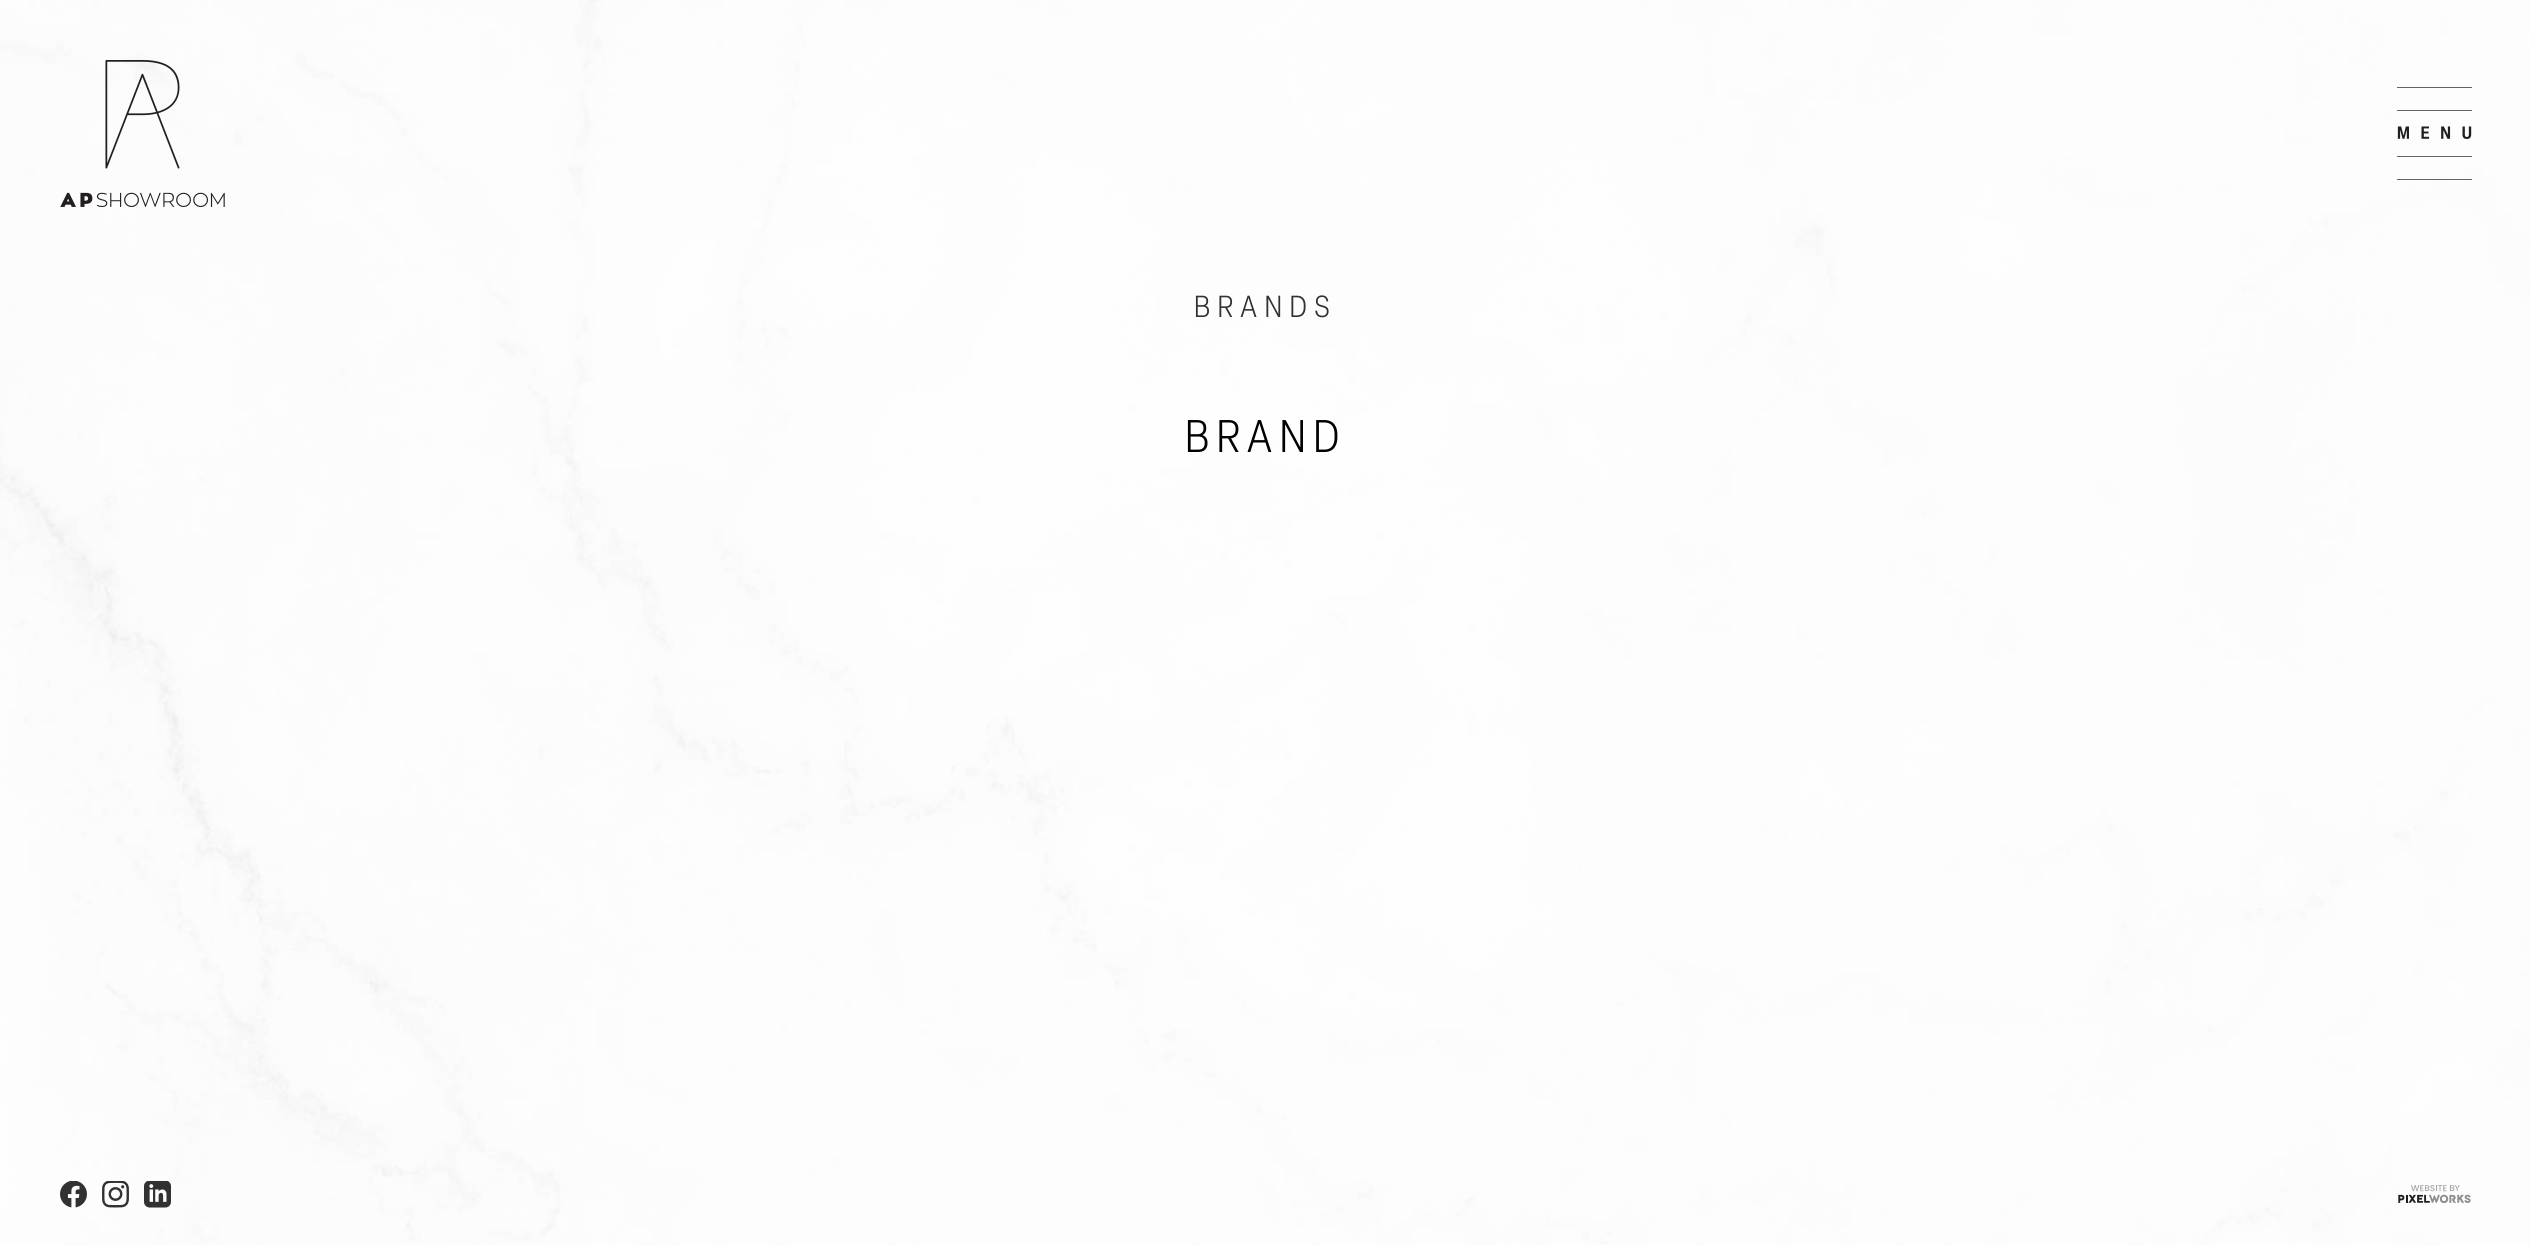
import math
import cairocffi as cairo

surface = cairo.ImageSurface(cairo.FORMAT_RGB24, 2531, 1245)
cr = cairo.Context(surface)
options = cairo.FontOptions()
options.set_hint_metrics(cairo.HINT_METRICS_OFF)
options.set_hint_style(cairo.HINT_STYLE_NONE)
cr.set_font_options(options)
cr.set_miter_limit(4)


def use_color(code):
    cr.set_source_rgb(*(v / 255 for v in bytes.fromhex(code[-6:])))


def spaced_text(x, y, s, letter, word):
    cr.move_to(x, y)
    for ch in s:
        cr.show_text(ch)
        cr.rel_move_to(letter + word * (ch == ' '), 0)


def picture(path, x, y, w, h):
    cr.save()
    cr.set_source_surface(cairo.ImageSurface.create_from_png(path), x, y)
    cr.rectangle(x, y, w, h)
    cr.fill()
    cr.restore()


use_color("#ffffff")
cr.paint()
picture("img1.png", 0, 0, 2530, 1245)
picture("img2.png", 60, 60, 165, 147)
picture("img3.png", 2397, 87, 75, 93)
cr.select_font_face("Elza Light")
cr.set_font_size(30)
use_color("#323232")
spaced_text(1194, 317, "BRANDS", 7.5, 0)
cr.set_font_size(45)
use_color("#000000")
spaced_text(1185, 452, "BRAND", 7.5, 0)
picture("img4.png", 60, 1181, 27, 27)
picture("img5.png", 102, 1181, 27, 27)
picture("img6.png", 144, 1181, 27, 27)
picture("img7.png", 2398, 1185, 73, 18)
surface.write_to_png("result.png")
